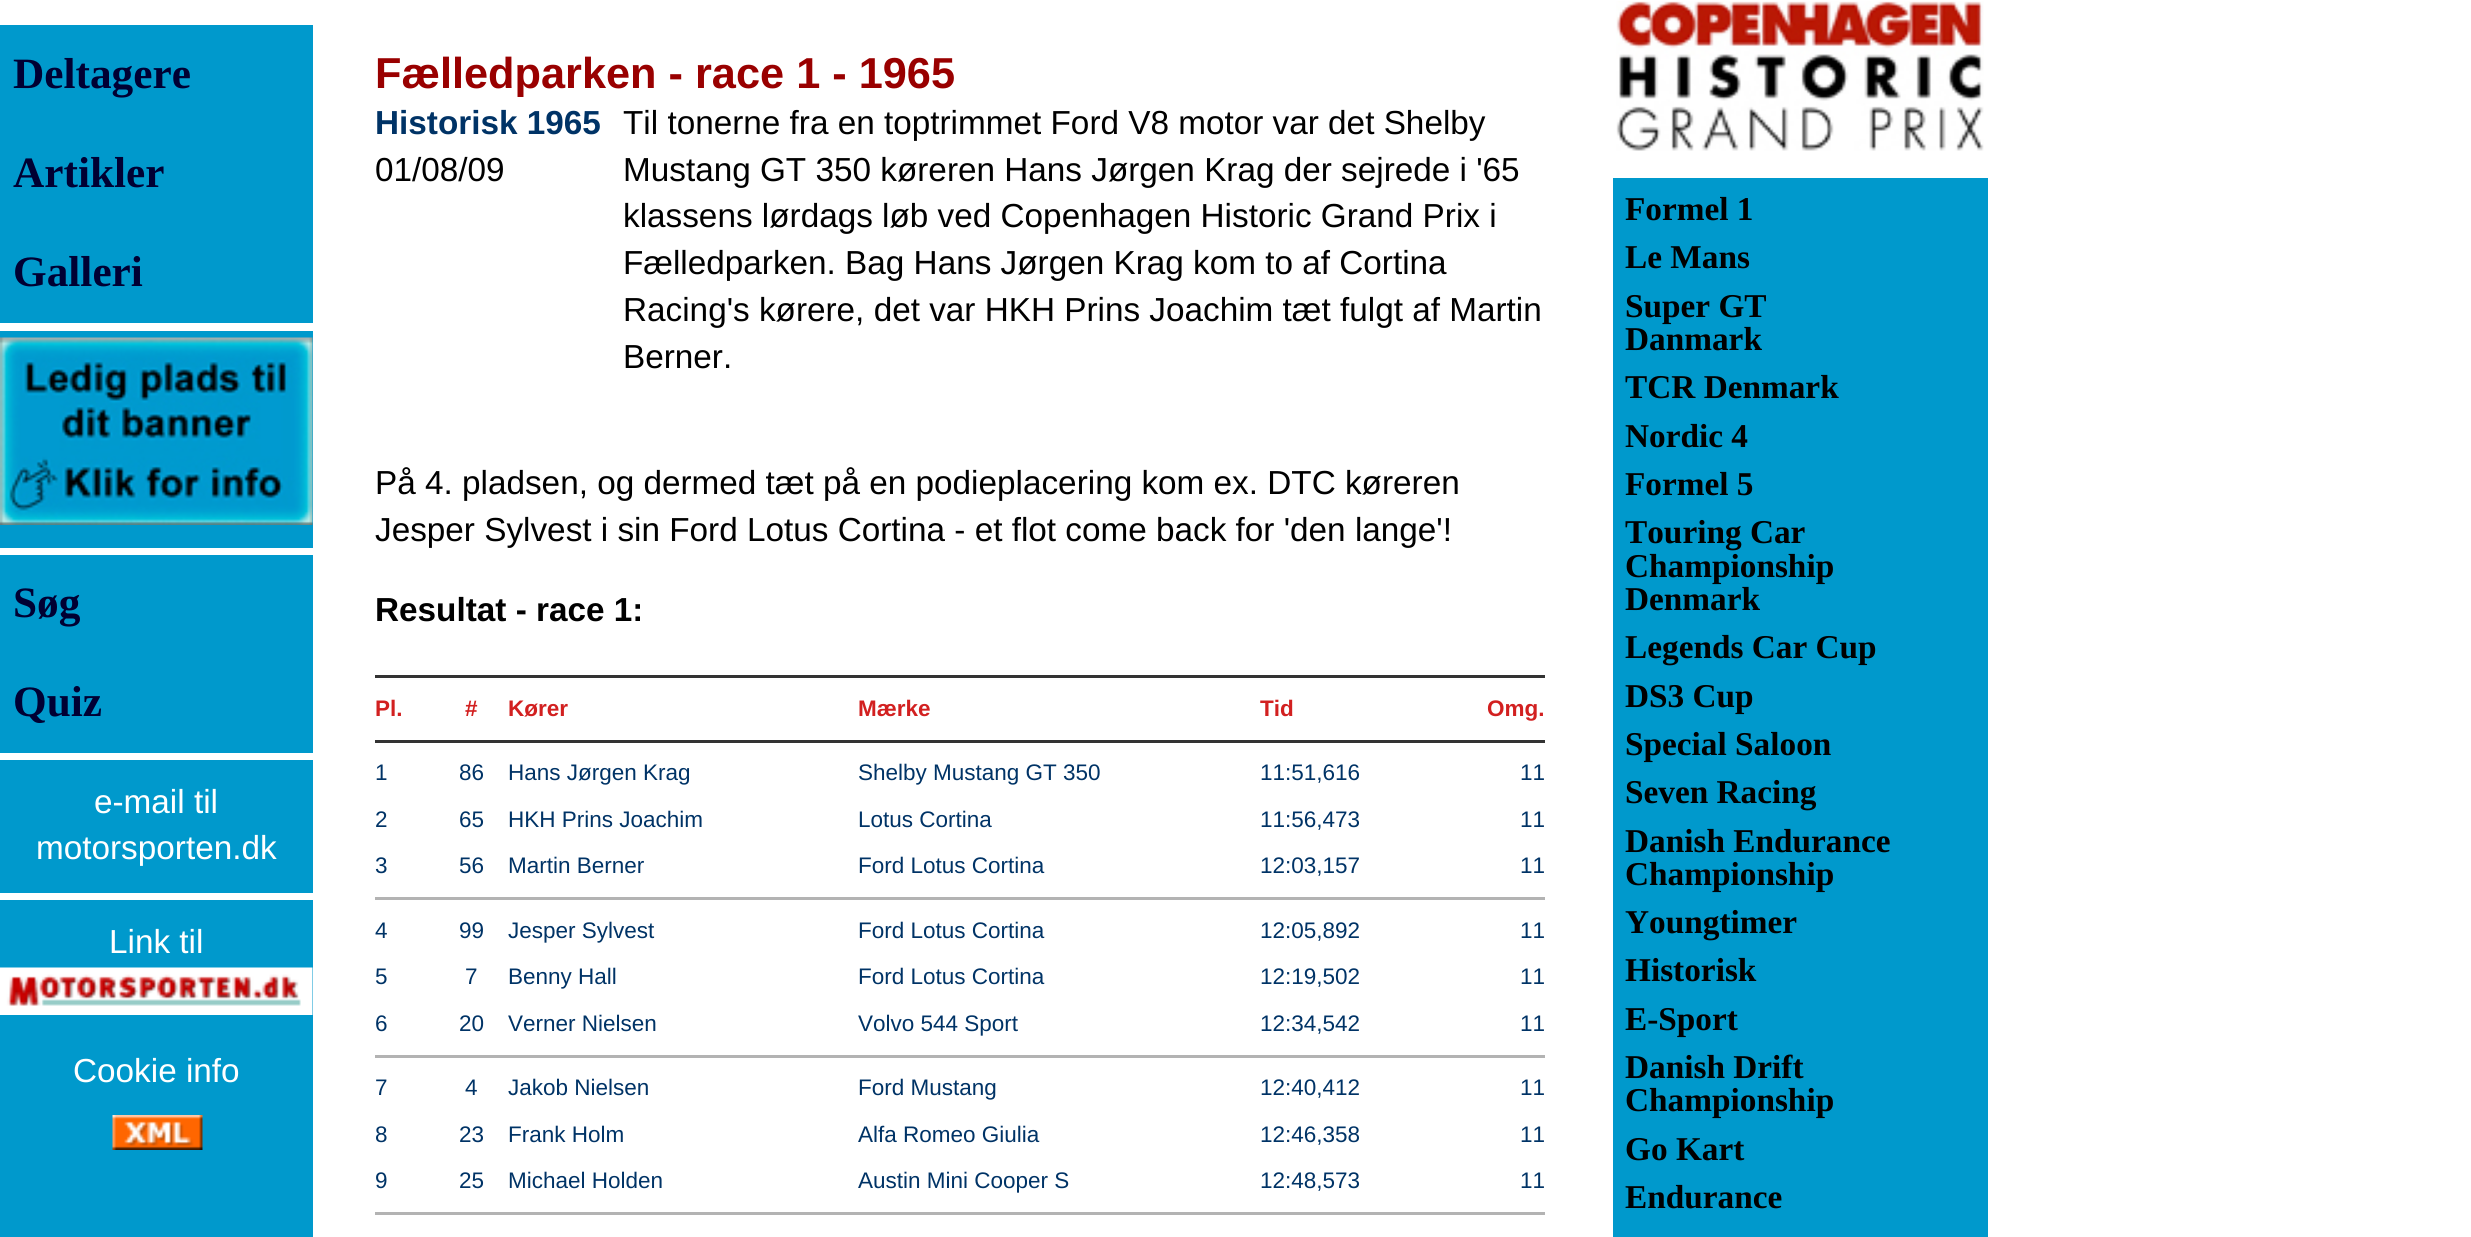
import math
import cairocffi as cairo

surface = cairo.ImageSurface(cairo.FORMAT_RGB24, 2471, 1237)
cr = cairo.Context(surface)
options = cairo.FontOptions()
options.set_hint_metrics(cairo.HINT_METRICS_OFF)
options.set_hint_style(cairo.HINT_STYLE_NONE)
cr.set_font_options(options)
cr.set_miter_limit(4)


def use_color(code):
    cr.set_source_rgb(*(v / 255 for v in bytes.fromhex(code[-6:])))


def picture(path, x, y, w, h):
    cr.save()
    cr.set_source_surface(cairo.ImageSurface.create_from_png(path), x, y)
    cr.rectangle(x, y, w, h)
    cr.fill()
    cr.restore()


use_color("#ffffff")
cr.paint()
use_color("#0099cc")
cr.rectangle(0, 25, 313, 1212)
cr.fill()
cr.select_font_face("Liberation Serif", cairo.FONT_SLANT_NORMAL, cairo.FONT_WEIGHT_BOLD)
cr.set_font_size(43.3)
use_color("#000033")
cr.move_to(13, 88)
cr.show_text("Deltagere")
cr.move_to(13, 187)
cr.show_text("Artikler")
cr.move_to(13, 286)
cr.show_text("Galleri")
use_color("#ffffff")
cr.rectangle(0, 323, 313, 8)
cr.fill()
picture("img1.png", 0, 337, 313, 188)
cr.rectangle(0, 548, 313, 7)
cr.fill()
use_color("#000033")
cr.move_to(13, 617)
cr.show_text("Søg")
cr.move_to(13, 716)
cr.show_text("Quiz")
use_color("#ffffff")
cr.rectangle(0, 753, 313, 7)
cr.fill()
cr.select_font_face("Liberation Sans")
cr.set_font_size(33.3)
cr.move_to(94, 813)
cr.show_text("e-mail til")
cr.move_to(36, 859)
cr.show_text("motorsporten.dk")
cr.rectangle(0, 893, 313, 7)
cr.fill()
cr.move_to(109, 953)
cr.show_text("Link til")
picture("img2.png", 0, 967, 313, 48)
cr.move_to(73, 1082)
cr.show_text("Cookie info")
picture("img3.png", 112, 1115, 91, 35)
cr.select_font_face("Liberation Sans", cairo.FONT_SLANT_NORMAL, cairo.FONT_WEIGHT_BOLD)
cr.set_font_size(43.3)
use_color("#990000")
cr.move_to(375, 88)
cr.show_text("Fælledparken - race 1 - 1965")
cr.set_font_size(33.3)
use_color("#003366")
cr.move_to(375, 134)
cr.show_text("Historisk 1965")
cr.select_font_face("Liberation Sans")
use_color("#000000")
cr.move_to(375, 181)
cr.show_text("01/08/09")
cr.move_to(623, 134)
cr.show_text("Til tonerne fra en toptrimmet Ford V8 motor var det Shelby")
cr.move_to(623, 181)
cr.show_text("Mustang GT 350 køreren Hans Jørgen Krag der sejrede i '65")
cr.move_to(623, 227)
cr.show_text("klassens lørdags løb ved Copenhagen Historic Grand Prix i")
cr.move_to(623, 274)
cr.show_text("Fælledparken. Bag Hans Jørgen Krag kom to af Cortina")
cr.move_to(623, 321)
cr.show_text("Racing's kørere, det var HKH Prins Joachim tæt fulgt af Martin")
cr.move_to(623, 368)
cr.show_text("Berner.")
cr.move_to(375, 494)
cr.show_text("På 4. pladsen, og dermed tæt på en podieplacering kom ex. DTC køreren")
cr.move_to(375, 541)
cr.show_text("Jesper Sylvest i sin Ford Lotus Cortina - et flot come back for 'den lange'!")
cr.select_font_face("Liberation Sans", cairo.FONT_SLANT_NORMAL, cairo.FONT_WEIGHT_BOLD)
cr.move_to(375, 621)
cr.show_text("Resultat - race 1:")
use_color("#333333")
cr.rectangle(375, 675, 1170, 3)
cr.fill()
cr.set_font_size(22.5)
use_color("#d22020")
cr.move_to(375, 716)
cr.show_text("Pl.")
cr.move_to(465, 716)
cr.show_text("#")
cr.move_to(508, 716)
cr.show_text("Kører")
cr.move_to(858, 716)
cr.show_text("Mærke")
cr.move_to(1260, 716)
cr.show_text("Tid")
cr.move_to(1487, 716)
cr.show_text("Omg.")
use_color("#333333")
cr.rectangle(375, 740, 1170, 3)
cr.fill()
cr.select_font_face("Liberation Sans")
use_color("#003366")
cr.move_to(375, 780)
cr.show_text("1")
cr.move_to(459, 780)
cr.show_text("86")
cr.move_to(508, 780)
cr.show_text("Hans Jørgen Krag")
cr.move_to(858, 780)
cr.show_text("Shelby Mustang GT 350")
cr.move_to(1260, 780)
cr.show_text("11:51,616")
cr.move_to(1520, 780)
cr.show_text("11")
cr.move_to(375, 827)
cr.show_text("2")
cr.move_to(459, 827)
cr.show_text("65")
cr.move_to(508, 827)
cr.show_text("HKH Prins Joachim")
cr.move_to(858, 827)
cr.show_text("Lotus Cortina")
cr.move_to(1260, 827)
cr.show_text("11:56,473")
cr.move_to(1520, 827)
cr.show_text("11")
cr.move_to(375, 873)
cr.show_text("3")
cr.move_to(459, 873)
cr.show_text("56")
cr.move_to(508, 873)
cr.show_text("Martin Berner")
cr.move_to(858, 873)
cr.show_text("Ford Lotus Cortina")
cr.move_to(1260, 873)
cr.show_text("12:03,157")
cr.move_to(1520, 873)
cr.show_text("11")
use_color("#b3b3b3")
cr.rectangle(375, 897, 1170, 3)
cr.fill()
use_color("#003366")
cr.move_to(375, 938)
cr.show_text("4")
cr.move_to(459, 938)
cr.show_text("99")
cr.move_to(508, 938)
cr.show_text("Jesper Sylvest")
cr.move_to(858, 938)
cr.show_text("Ford Lotus Cortina")
cr.move_to(1260, 938)
cr.show_text("12:05,892")
cr.move_to(1520, 938)
cr.show_text("11")
cr.move_to(375, 984)
cr.show_text("5")
cr.move_to(465, 984)
cr.show_text("7")
cr.move_to(508, 984)
cr.show_text("Benny Hall")
cr.move_to(858, 984)
cr.show_text("Ford Lotus Cortina")
cr.move_to(1260, 984)
cr.show_text("12:19,502")
cr.move_to(1520, 984)
cr.show_text("11")
cr.move_to(375, 1031)
cr.show_text("6")
cr.move_to(459, 1031)
cr.show_text("20")
cr.move_to(508, 1031)
cr.show_text("Verner Nielsen")
cr.move_to(858, 1031)
cr.show_text("Volvo 544 Sport")
cr.move_to(1260, 1031)
cr.show_text("12:34,542")
cr.move_to(1520, 1031)
cr.show_text("11")
use_color("#b3b3b3")
cr.rectangle(375, 1055, 1170, 3)
cr.fill()
use_color("#003366")
cr.move_to(375, 1095)
cr.show_text("7")
cr.move_to(465, 1095)
cr.show_text("4")
cr.move_to(508, 1095)
cr.show_text("Jakob Nielsen")
cr.move_to(858, 1095)
cr.show_text("Ford Mustang")
cr.move_to(1260, 1095)
cr.show_text("12:40,412")
cr.move_to(1520, 1095)
cr.show_text("11")
cr.move_to(375, 1142)
cr.show_text("8")
cr.move_to(459, 1142)
cr.show_text("23")
cr.move_to(508, 1142)
cr.show_text("Frank Holm")
cr.move_to(858, 1142)
cr.show_text("Alfa Romeo Giulia")
cr.move_to(1260, 1142)
cr.show_text("12:46,358")
cr.move_to(1520, 1142)
cr.show_text("11")
cr.move_to(375, 1188)
cr.show_text("9")
cr.move_to(459, 1188)
cr.show_text("25")
cr.move_to(508, 1188)
cr.show_text("Michael Holden")
cr.move_to(858, 1188)
cr.show_text("Austin Mini Cooper S")
cr.move_to(1260, 1188)
cr.show_text("12:48,573")
cr.move_to(1520, 1188)
cr.show_text("11")
use_color("#b3b3b3")
cr.rectangle(375, 1212, 1170, 3)
cr.fill()
use_color("#0099cc")
cr.rectangle(1613, 178, 375, 1059)
cr.fill()
picture("img4.png", 1616, 1, 368, 150)
cr.select_font_face("Liberation Serif", cairo.FONT_SLANT_NORMAL, cairo.FONT_WEIGHT_BOLD)
cr.set_font_size(33.3)
use_color("#000000")
cr.move_to(1625, 220)
cr.show_text("Formel 1")
cr.move_to(1625, 268)
cr.show_text("Le Mans")
cr.move_to(1625, 317)
cr.show_text("Super GT")
cr.move_to(1625, 350)
cr.show_text("Danmark")
cr.move_to(1625, 398)
cr.show_text("TCR Denmark")
cr.move_to(1625, 447)
cr.show_text("Nordic 4")
cr.move_to(1625, 495)
cr.show_text("Formel 5")
cr.move_to(1625, 543)
cr.show_text("Touring Car")
cr.move_to(1625, 577)
cr.show_text("Championship")
cr.move_to(1625, 610)
cr.show_text("Denmark")
cr.move_to(1625, 658)
cr.show_text("Legends Car Cup")
cr.move_to(1625, 707)
cr.show_text("DS3 Cup")
cr.move_to(1625, 755)
cr.show_text("Special Saloon")
cr.move_to(1625, 803)
cr.show_text("Seven Racing")
cr.move_to(1625, 852)
cr.show_text("Danish Endurance")
cr.move_to(1625, 885)
cr.show_text("Championship")
cr.move_to(1625, 933)
cr.show_text("Youngtimer")
cr.move_to(1625, 981)
cr.show_text("Historisk")
cr.move_to(1625, 1030)
cr.show_text("E-Sport")
cr.move_to(1625, 1078)
cr.show_text("Danish Drift")
cr.move_to(1625, 1111)
cr.show_text("Championship")
cr.move_to(1625, 1160)
cr.show_text("Go Kart")
cr.move_to(1625, 1208)
cr.show_text("Endurance")
surface.write_to_png("result.png")
